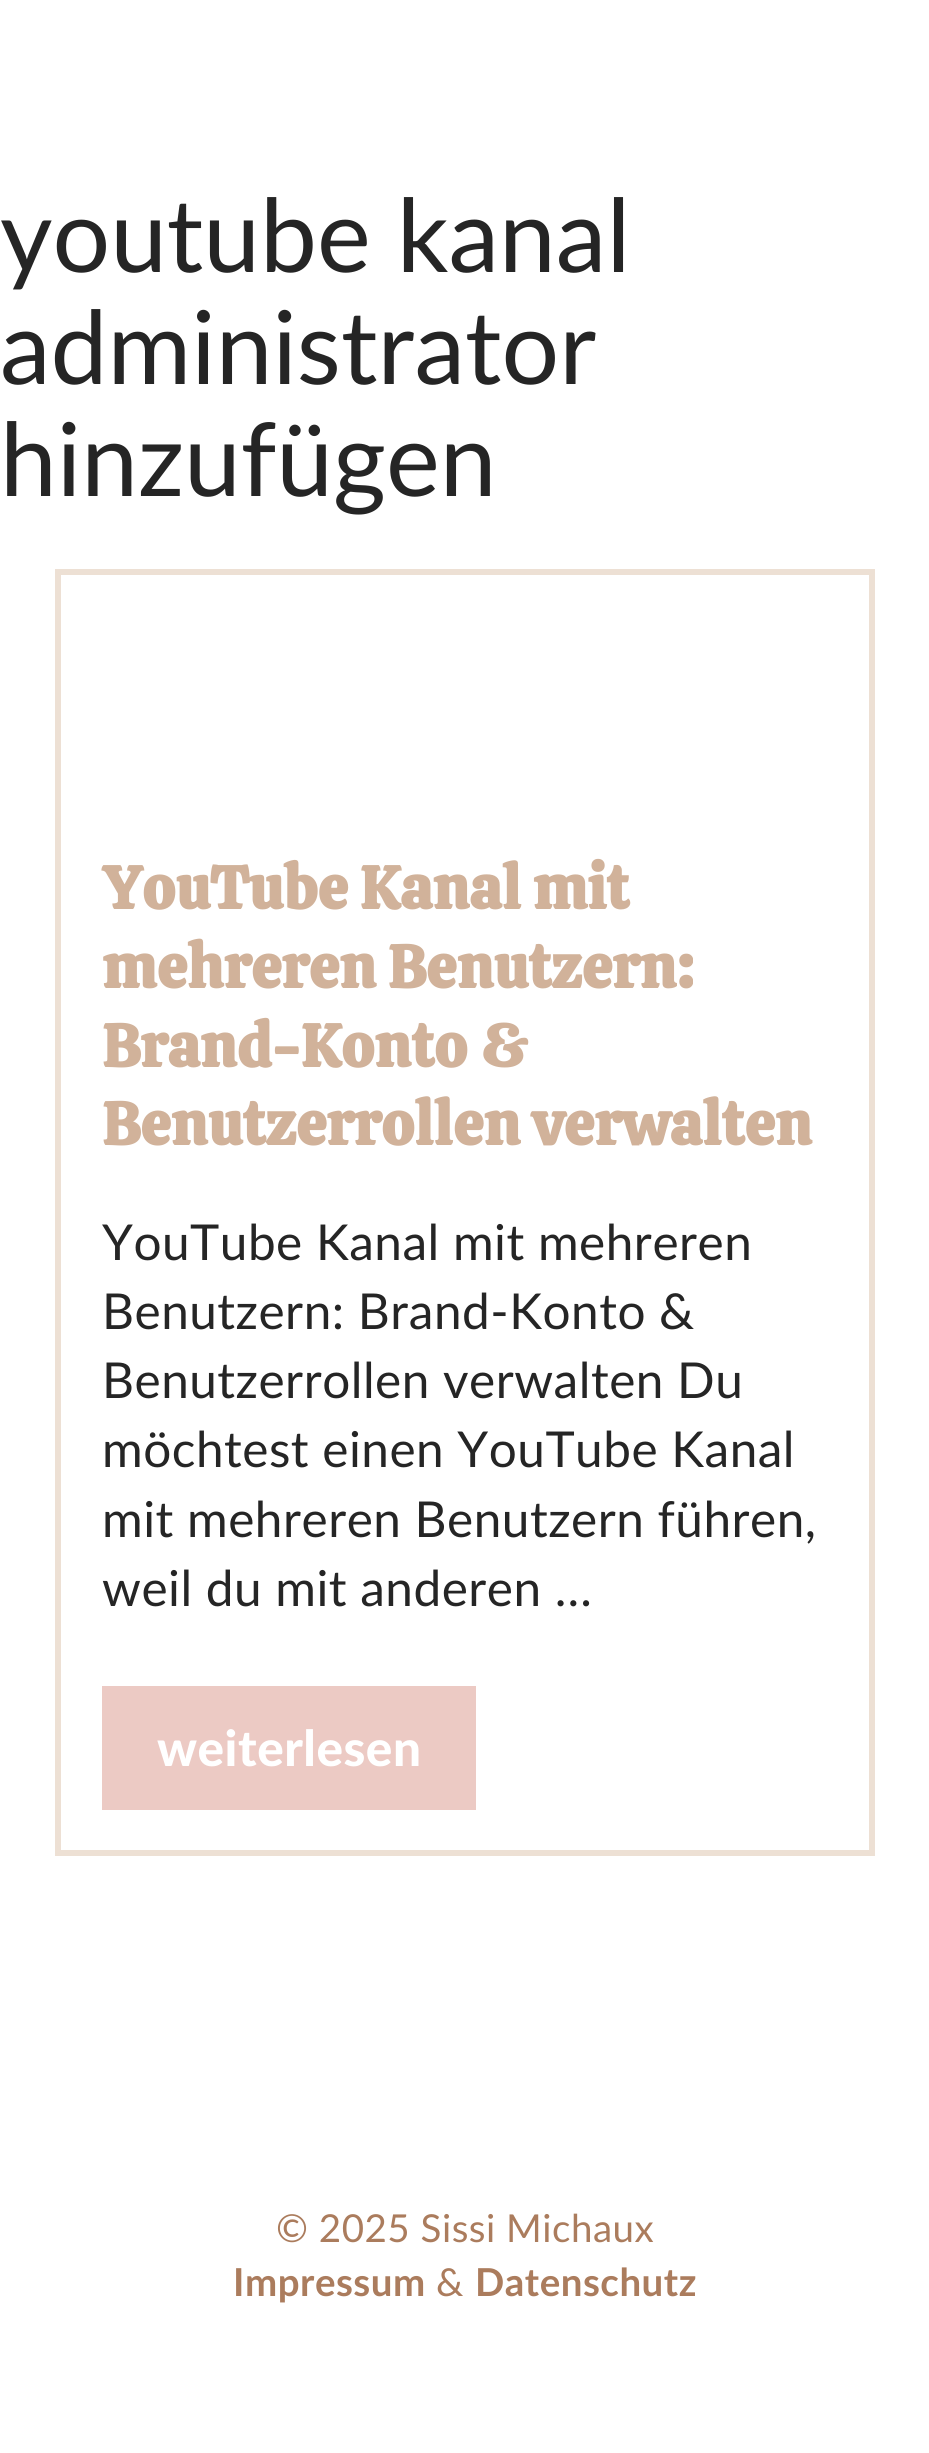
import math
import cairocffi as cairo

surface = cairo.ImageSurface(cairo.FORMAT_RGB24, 929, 2453)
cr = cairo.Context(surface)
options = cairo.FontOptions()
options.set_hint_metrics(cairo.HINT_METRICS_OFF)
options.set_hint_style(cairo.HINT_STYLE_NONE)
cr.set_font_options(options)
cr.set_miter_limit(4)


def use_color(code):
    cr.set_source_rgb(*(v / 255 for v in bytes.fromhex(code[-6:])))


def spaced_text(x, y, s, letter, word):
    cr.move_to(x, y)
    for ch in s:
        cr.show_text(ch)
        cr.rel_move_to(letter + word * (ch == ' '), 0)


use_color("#ffffff")
cr.paint()
cr.select_font_face("Lato")
cr.set_font_size(101.75)
use_color("#252525")
cr.move_to(0, 272)
cr.show_text("youtube kanal")
cr.move_to(0, 384)
cr.show_text("administrator")
cr.move_to(0, 496)
cr.show_text("hinzufügen")
cr.rectangle(58, 572, 814, 1281)
use_color("#ede0d4")
cr.set_line_width(6)
cr.stroke()
cr.select_font_face("Calistoga", cairo.FONT_SLANT_NORMAL, cairo.FONT_WEIGHT_BOLD)
cr.set_font_size(60.5)
use_color("#d1b29a")
cr.move_to(102, 909)
cr.show_text("YouTube Kanal mit")
cr.move_to(102, 988)
cr.show_text("mehreren Benutzern:")
cr.move_to(102, 1067)
cr.show_text("Brand-Konto &")
cr.move_to(102, 1145)
cr.show_text("Benutzerrollen verwalten")
cr.select_font_face("Lato")
cr.set_font_size(49.5)
use_color("#252525")
spaced_text(102, 1260, "YouTube Kanal mit mehreren", 0.5, 0)
spaced_text(102, 1329, "Benutzern: Brand-Konto &", 0.5, 0)
spaced_text(102, 1398, "Benutzerrollen verwalten Du", 0.5, 0)
spaced_text(102, 1467, "möchtest einen YouTube Kanal", 0.5, 0)
spaced_text(102, 1537, "mit mehreren Benutzern führen,", 0.5, 0)
spaced_text(102, 1606, "weil du mit anderen …", 0.5, 0)
use_color("#eccac4")
cr.rectangle(102, 1686, 374, 124)
cr.fill()
cr.select_font_face("Lato Black")
use_color("#ffffff")
spaced_text(157, 1766, "weiterlesen", 0.5, 0)
cr.select_font_face("Lato")
cr.set_font_size(38.5)
use_color("#ab7c5d")
spaced_text(276, 2242, "© 2025 Sissi Michaux", 0.5, 0)
cr.select_font_face("Lato", cairo.FONT_SLANT_NORMAL, cairo.FONT_WEIGHT_BOLD)
spaced_text(233, 2296, "Impressum", 0.5, 0)
cr.select_font_face("Lato")
spaced_text(436, 2296, "&", 0.5, 0)
cr.select_font_face("Lato", cairo.FONT_SLANT_NORMAL, cairo.FONT_WEIGHT_BOLD)
spaced_text(475, 2296, "Datenschutz", 0.5, 0)
surface.write_to_png("result.png")
